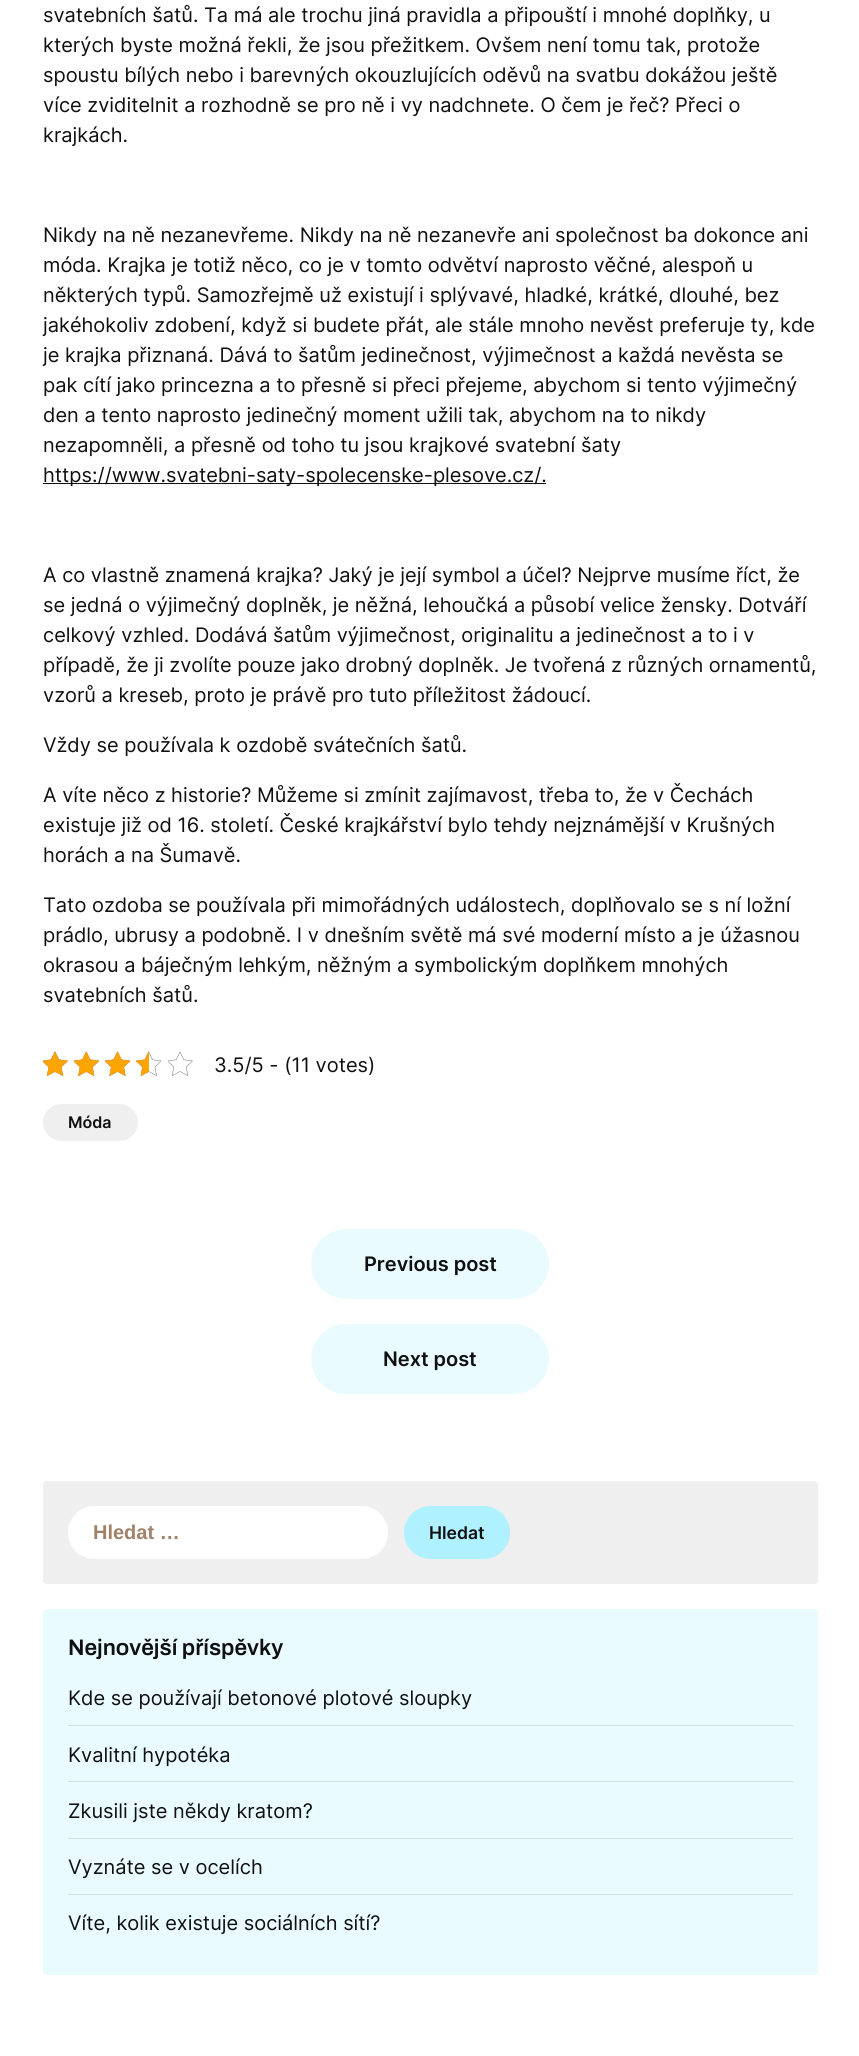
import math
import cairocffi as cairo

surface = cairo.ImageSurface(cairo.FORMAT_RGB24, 859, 2056)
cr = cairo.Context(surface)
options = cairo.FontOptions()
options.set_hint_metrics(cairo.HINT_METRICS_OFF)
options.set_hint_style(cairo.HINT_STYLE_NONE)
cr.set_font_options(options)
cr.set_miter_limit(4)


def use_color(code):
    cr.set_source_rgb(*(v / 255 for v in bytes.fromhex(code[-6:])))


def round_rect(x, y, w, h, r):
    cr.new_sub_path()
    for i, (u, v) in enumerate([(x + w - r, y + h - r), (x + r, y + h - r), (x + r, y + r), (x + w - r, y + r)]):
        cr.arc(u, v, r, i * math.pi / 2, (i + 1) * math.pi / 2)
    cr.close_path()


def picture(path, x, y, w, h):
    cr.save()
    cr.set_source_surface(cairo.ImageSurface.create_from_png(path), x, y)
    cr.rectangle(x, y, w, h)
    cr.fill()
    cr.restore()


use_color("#ffffff")
cr.paint()
cr.select_font_face("Inter")
cr.set_font_size(20)
use_color("#101010")
cr.move_to(43, 22)
cr.show_text("svatebních šatů. Ta má ale trochu jiná pravidla a připouští i mnohé doplňky, u")
cr.move_to(43, 52)
cr.show_text("kterých byste možná řekli, že jsou přežitkem. Ovšem není tomu tak, protože")
cr.move_to(43, 82)
cr.show_text("spoustu bílých nebo i barevných okouzlujících oděvů na svatbu dokážou ještě")
cr.move_to(43, 112)
cr.show_text("více zviditelnit a rozhodně se pro ně i vy nadchnete. O čem je řeč? Přeci o")
cr.move_to(43, 142)
cr.show_text("krajkách.")
cr.move_to(43, 242)
cr.show_text("Nikdy na ně nezanevřeme. Nikdy na ně nezanevře ani společnost ba dokonce ani")
cr.move_to(43, 272)
cr.show_text("móda. Krajka je totiž něco, co je v tomto odvětví naprosto věčné, alespoň u")
cr.move_to(43, 302)
cr.show_text("některých typů. Samozřejmě už existují i splývavé, hladké, krátké, dlouhé, bez")
cr.move_to(43, 332)
cr.show_text("jakéhokoliv zdobení, když si budete přát, ale stále mnoho nevěst preferuje ty, kde")
cr.move_to(43, 362)
cr.show_text("je krajka přiznaná. Dává to šatům jedinečnost, výjimečnost a každá nevěsta se")
cr.move_to(43, 392)
cr.show_text("pak cítí jako princezna a to přesně si přeci přejeme, abychom si tento výjimečný")
cr.move_to(43, 422)
cr.show_text("den a tento naprosto jedinečný moment užili tak, abychom na to nikdy")
cr.move_to(43, 452)
cr.show_text("nezapomněli, a přesně od toho tu jsou krajkové svatební šaty")
cr.rectangle(43, 483, 503, 1)
cr.fill()
cr.move_to(43, 482)
cr.show_text("https://www.svatebni-saty-spolecenske-plesove.cz/.")
cr.move_to(43, 582)
cr.show_text("A co vlastně znamená krajka? Jaký je její symbol a účel? Nejprve musíme říct, že")
cr.move_to(43, 612)
cr.show_text("se jedná o výjimečný doplněk, je něžná, lehoučká a působí velice žensky. Dotváří")
cr.move_to(43, 642)
cr.show_text("celkový vzhled. Dodává šatům výjimečnost, originalitu a jedinečnost a to i v")
cr.move_to(43, 672)
cr.show_text("případě, že ji zvolíte pouze jako drobný doplněk. Je tvořená z různých ornamentů,")
cr.move_to(43, 702)
cr.show_text("vzorů a kreseb, proto je právě pro tuto příležitost žádoucí.")
cr.move_to(43, 752)
cr.show_text("Vždy se používala k ozdobě svátečních šatů.")
cr.move_to(43, 802)
cr.show_text("A víte něco z historie? Můžeme si zmínit zajímavost, třeba to, že v Čechách")
cr.move_to(43, 832)
cr.show_text("existuje již od 16. století. České krajkářství bylo tehdy nejznámější v Krušných")
cr.move_to(43, 862)
cr.show_text("horách a na Šumavě.")
cr.move_to(43, 912)
cr.show_text("Tato ozdoba se používala při mimořádných událostech, doplňovalo se s ní ložní")
cr.move_to(43, 942)
cr.show_text("prádlo, ubrusy a podobně. I v dnešním světě má své moderní místo a je úžasnou")
cr.move_to(43, 972)
cr.show_text("okrasou a báječným lehkým, něžným a symbolickým doplňkem mnohých")
cr.move_to(43, 1002)
cr.show_text("svatebních šatů.")
picture("img1.png", 43, 1051, 25, 25)
picture("img2.png", 74, 1051, 25, 25)
picture("img3.png", 105, 1051, 25, 25)
picture("img4.png", 136, 1051, 25, 25)
picture("img1.png", 168, 1051, 25, 25)
picture("img5.png", 43, 1051, 25, 25)
picture("img6.png", 74, 1051, 25, 25)
picture("img7.png", 105, 1051, 25, 25)
picture("img8.png", 136, 1051, 13, 25)
cr.move_to(214, 1072)
cr.show_text("3.5/5 - (11 votes)")
use_color("#efefef")
round_rect(43, 1104, 95, 37, 18.5)
cr.fill()
cr.select_font_face("Inter SemiBold")
cr.set_font_size(16)
use_color("#101010")
cr.move_to(68, 1128)
cr.show_text("Móda")
use_color("#e9fbff")
round_rect(311, 1229, 238, 70, 35)
cr.fill()
cr.set_font_size(20)
use_color("#101010")
cr.move_to(364, 1271)
cr.show_text("Previous post")
use_color("#e9fbff")
round_rect(311, 1324, 238, 70, 35)
cr.fill()
use_color("#101010")
cr.move_to(383, 1366)
cr.show_text("Next post")
use_color("#efefef")
round_rect(43, 1481, 775, 103, 4)
cr.fill()
use_color("#ffffff")
round_rect(68, 1506, 320, 53, 26.5)
cr.fill()
cr.select_font_face("Liberation Sans", cairo.FONT_SLANT_NORMAL, cairo.FONT_WEIGHT_BOLD)
use_color("#a0816a")
cr.move_to(93, 1539)
cr.show_text("Hledat …")
use_color("#aff1ff")
round_rect(404, 1506, 106, 53, 26.5)
cr.fill()
cr.select_font_face("Inter SemiBold")
cr.set_font_size(17.5)
use_color("#101010")
cr.move_to(429, 1539)
cr.show_text("Hledat")
use_color("#e9fbff")
round_rect(43, 1609, 775, 366, 4)
cr.fill()
cr.select_font_face("Archivo SemiBold")
cr.set_font_size(22.5)
use_color("#101010")
cr.move_to(68, 1655)
cr.show_text("Nejnovější příspěvky")
use_color("#d2e2e6")
cr.rectangle(68, 1725, 725, 1)
cr.fill()
cr.select_font_face("Inter")
cr.set_font_size(20)
use_color("#101010")
cr.move_to(68, 1705)
cr.show_text("Kde se používají betonové plotové sloupky")
use_color("#d2e2e6")
cr.rectangle(68, 1781, 725, 1)
cr.fill()
use_color("#101010")
cr.move_to(68, 1762)
cr.show_text("Kvalitní hypotéka")
use_color("#d2e2e6")
cr.rectangle(68, 1838, 725, 1)
cr.fill()
use_color("#101010")
cr.move_to(68, 1818)
cr.show_text("Zkusili jste někdy kratom?")
use_color("#d2e2e6")
cr.rectangle(68, 1894, 725, 1)
cr.fill()
use_color("#101010")
cr.move_to(68, 1874)
cr.show_text("Vyznáte se v ocelích")
cr.move_to(68, 1930)
cr.show_text("Víte, kolik existuje sociálních sítí?")
surface.write_to_png("result.png")
